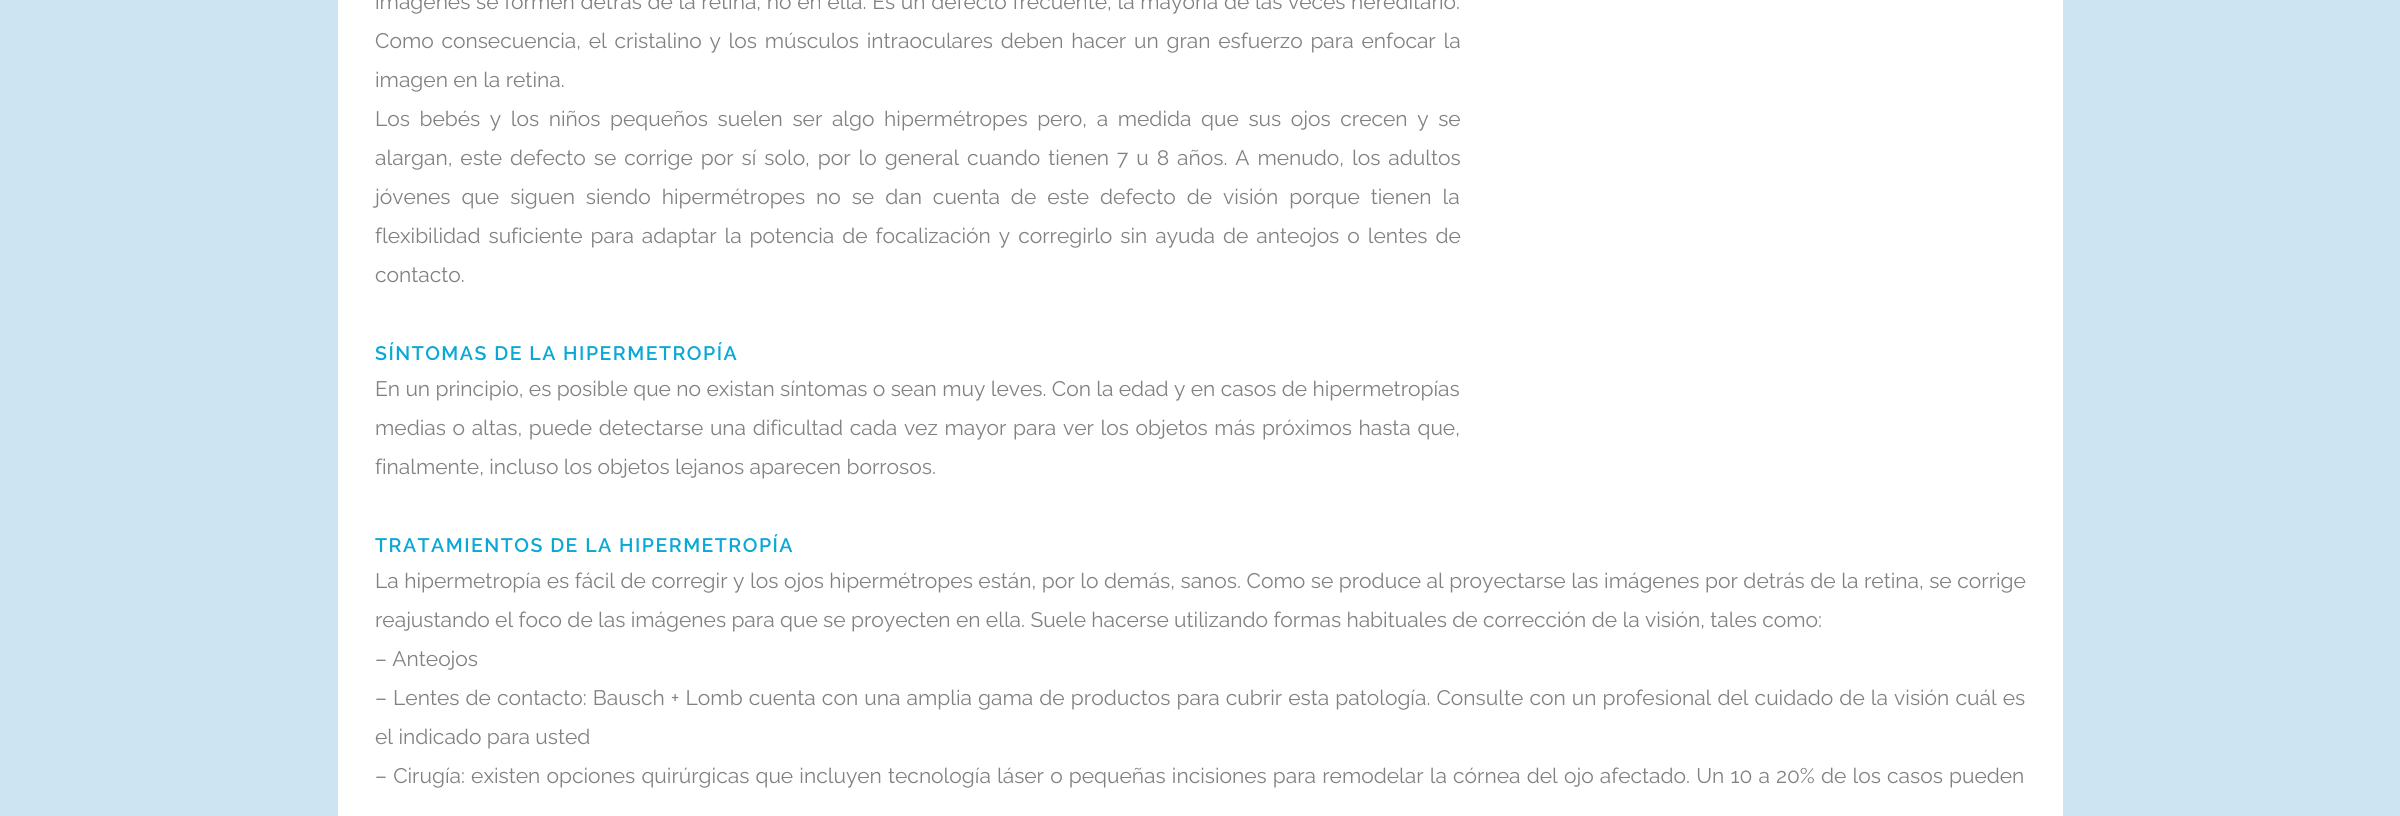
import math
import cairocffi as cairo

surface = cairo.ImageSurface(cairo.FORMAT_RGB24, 2400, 816)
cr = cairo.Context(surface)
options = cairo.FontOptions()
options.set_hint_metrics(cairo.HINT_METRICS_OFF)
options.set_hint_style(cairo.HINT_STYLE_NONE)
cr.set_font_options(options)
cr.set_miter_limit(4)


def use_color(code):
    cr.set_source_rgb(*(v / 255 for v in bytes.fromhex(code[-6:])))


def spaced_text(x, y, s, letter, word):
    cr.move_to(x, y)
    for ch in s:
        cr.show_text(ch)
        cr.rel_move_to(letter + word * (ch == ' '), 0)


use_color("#cde4f2")
cr.paint()
use_color("#ffffff")
cr.rectangle(338, 0, 1725, 816)
cr.fill()
cr.select_font_face("Raleway")
cr.set_font_size(21)
use_color("#818181")
spaced_text(375, 9, "imágenes se formen detrás de la retina, no en ella. Es un defecto frecuente, la mayoría de las veces hereditario.", 0, 0.3)
spaced_text(375, 48, "Como consecuencia, el cristalino y los músculos intraoculares deben hacer un gran esfuerzo para enfocar la", 0, 2.4)
cr.move_to(375, 87)
cr.show_text("imagen en la retina.")
spaced_text(375, 126, "Los bebés y los niños pequeños suelen ser algo hipermétropes pero, a medida que sus ojos crecen y se", 0, 4.25)
spaced_text(375, 165, "alargan, este defecto se corrige por sí solo, por lo general cuando tienen 7 u 8 años. A menudo, los adultos", 0, 2.6)
spaced_text(375, 204, "jóvenes que siguen siendo hipermétropes no se dan cuenta de este defecto de visión porque tienen la", 0, 5.6)
spaced_text(375, 243, "flexibilidad suficiente para adaptar la potencia de focalización y corregirlo sin ayuda de anteojos o lentes de", 0, 2.6)
cr.move_to(375, 282)
cr.show_text("contacto.")
cr.select_font_face("Raleway SemiBold")
cr.set_font_size(19.5)
use_color("#09a8d6")
spaced_text(375, 360, "SÍNTOMAS DE LA HIPERMETROPÍA", 1.5, 0)
cr.select_font_face("Raleway")
cr.set_font_size(21)
use_color("#818181")
cr.move_to(375, 396)
cr.show_text("En un principio, es posible que no existan síntomas o sean muy leves. Con la edad y en casos de hipermetropías")
spaced_text(375, 435, "medias o altas, puede detectarse una dificultad cada vez mayor para ver los objetos más próximos hasta que,", 0, 1.3)
cr.move_to(375, 474)
cr.show_text("finalmente, incluso los objetos lejanos aparecen borrosos.")
cr.select_font_face("Raleway SemiBold")
cr.set_font_size(19.5)
use_color("#09a8d6")
spaced_text(375, 552, "TRATAMIENTOS DE LA HIPERMETROPÍA", 1.5, 0)
cr.select_font_face("Raleway")
cr.set_font_size(21)
use_color("#818181")
spaced_text(375, 588, "La hipermetropía es fácil de corregir y los ojos hipermétropes están, por lo demás, sanos. Como se produce al proyectarse las imágenes por detrás de la retina, se corrige", 0, 0.2)
cr.move_to(375, 627)
cr.show_text("reajustando el foco de las imágenes para que se proyecten en ella. Suele hacerse utilizando formas habituales de corrección de la visión, tales como:")
cr.move_to(375, 666)
cr.show_text("– Anteojos")
spaced_text(375, 705, "– Lentes de contacto: Bausch + Lomb cuenta con una amplia gama de productos para cubrir esta patología. Consulte con un profesional del cuidado de la visión cuál es", 0, 0.75)
cr.move_to(375, 744)
cr.show_text("el indicado para usted")
spaced_text(375, 783, "– Cirugía: existen opciones quirúrgicas que incluyen tecnología láser o pequeñas incisiones para remodelar la córnea del ojo afectado. Un 10 a 20% de los casos pueden", 0, 0.8)
surface.write_to_png("result.png")
